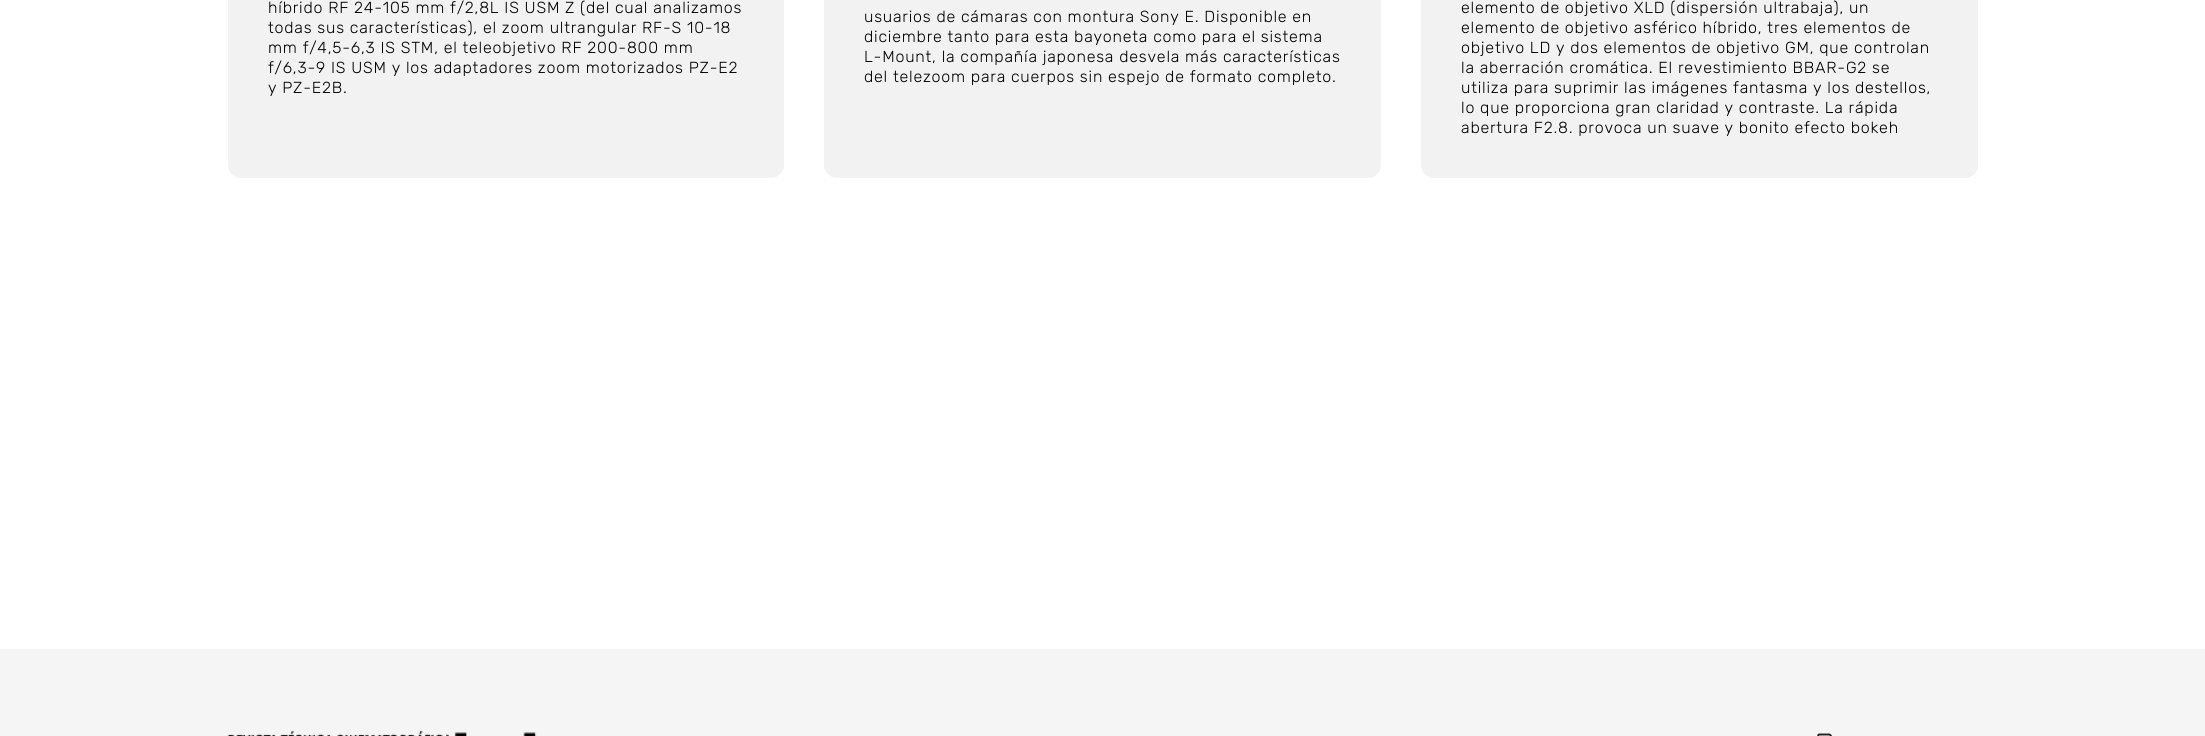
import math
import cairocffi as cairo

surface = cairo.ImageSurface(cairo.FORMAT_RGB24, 2205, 736)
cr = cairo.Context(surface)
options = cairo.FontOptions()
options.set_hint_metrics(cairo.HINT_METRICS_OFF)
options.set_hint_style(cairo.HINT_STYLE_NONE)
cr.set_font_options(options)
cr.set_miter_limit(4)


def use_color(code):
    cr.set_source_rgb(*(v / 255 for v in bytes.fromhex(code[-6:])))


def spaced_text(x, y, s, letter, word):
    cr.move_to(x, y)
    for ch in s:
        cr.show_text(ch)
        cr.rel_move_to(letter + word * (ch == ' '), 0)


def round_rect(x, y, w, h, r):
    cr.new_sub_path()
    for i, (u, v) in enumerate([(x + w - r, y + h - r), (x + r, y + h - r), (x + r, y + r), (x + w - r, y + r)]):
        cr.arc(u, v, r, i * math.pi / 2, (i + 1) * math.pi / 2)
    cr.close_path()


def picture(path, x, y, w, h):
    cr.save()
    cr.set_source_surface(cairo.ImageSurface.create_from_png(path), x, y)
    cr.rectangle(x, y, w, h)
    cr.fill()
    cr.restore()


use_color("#ffffff")
cr.paint()
use_color("#f2f2f2")
round_rect(228, -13, 556, 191, 13)
cr.fill()
cr.select_font_face("Rubik Light")
cr.set_font_size(16)
use_color("#000000")
spaced_text(268, 13, "híbrido RF 24-105 mm f/2,8L IS USM Z (del cual analizamos", 0.8, 0)
spaced_text(268, 33, "todas sus características), el zoom ultrangular RF-S 10-18", 0.8, 0)
spaced_text(268, 53, "mm f/4,5-6,3 IS STM, el teleobjetivo RF 200-800 mm", 0.8, 0)
spaced_text(268, 73, "f/6,3-9 IS USM y los adaptadores zoom motorizados PZ-E2", 0.8, 0)
spaced_text(268, 93, "y PZ-E2B.", 0.8, 0)
use_color("#f2f2f2")
round_rect(824, -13, 557, 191, 13)
cr.fill()
use_color("#000000")
spaced_text(864, 22, "usuarios de cámaras con montura Sony E. Disponible en", 0.8, 0)
spaced_text(864, 42, "diciembre tanto para esta bayoneta como para el sistema", 0.8, 0)
spaced_text(864, 62, "L-Mount, la compañía japonesa desvela más características", 0.8, 0)
spaced_text(864, 82, "del telezoom para cuerpos sin espejo de formato completo.", 0.8, 0)
use_color("#f2f2f2")
round_rect(1421, -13, 557, 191, 13)
cr.fill()
use_color("#000000")
spaced_text(1461, 13, "elemento de objetivo XLD (dispersión ultrabaja), un", 0.8, 0)
spaced_text(1461, 33, "elemento de objetivo asférico híbrido, tres elementos de", 0.8, 0)
spaced_text(1461, 53, "objetivo LD y dos elementos de objetivo GM, que controlan", 0.8, 0)
spaced_text(1461, 73, "la aberración cromática. El revestimiento BBAR-G2 se", 0.8, 0)
spaced_text(1461, 93, "utiliza para suprimir las imágenes fantasma y los destellos,", 0.8, 0)
spaced_text(1461, 113, "lo que proporciona gran claridad y contraste. La rápida", 0.8, 0)
spaced_text(1461, 133, "abertura F2.8. provoca un suave y bonito efecto bokeh", 0.8, 0)
use_color("#f5f5f5")
cr.rectangle(0, 649, 2205, 87)
cr.fill()
picture("img1.png", 227, 731, 310, 5)
picture("img2.png", 1817, 733, 15, 3)
surface.write_to_png("result.png")
